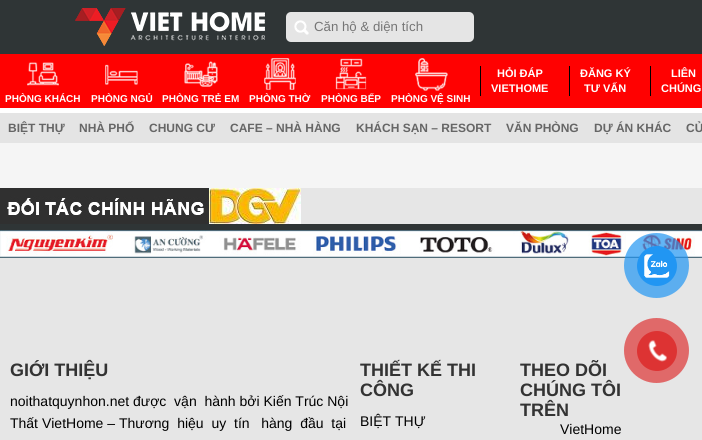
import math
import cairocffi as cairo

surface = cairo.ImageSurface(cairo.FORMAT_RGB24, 702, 440)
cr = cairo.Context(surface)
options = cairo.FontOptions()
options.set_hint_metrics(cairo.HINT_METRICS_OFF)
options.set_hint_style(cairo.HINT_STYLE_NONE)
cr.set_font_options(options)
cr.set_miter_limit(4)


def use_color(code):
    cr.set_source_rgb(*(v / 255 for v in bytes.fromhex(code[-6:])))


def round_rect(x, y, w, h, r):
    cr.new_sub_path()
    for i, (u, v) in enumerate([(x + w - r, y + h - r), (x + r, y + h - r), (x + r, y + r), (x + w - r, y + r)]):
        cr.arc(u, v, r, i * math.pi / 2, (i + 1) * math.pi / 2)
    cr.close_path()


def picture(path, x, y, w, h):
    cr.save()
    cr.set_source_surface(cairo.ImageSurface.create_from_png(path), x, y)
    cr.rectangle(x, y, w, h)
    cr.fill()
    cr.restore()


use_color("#f5f5f5")
cr.paint()
use_color("#2f3536")
cr.rectangle(0, 0, 702, 54)
cr.fill()
picture("img1.png", 75, 8, 190, 38)
use_color("#e5e5e5")
round_rect(286, 12, 188, 30, 5)
cr.fill()
picture("img2.png", 294, 20, 15, 15)
cr.select_font_face("Liberation Sans")
cr.set_font_size(13.25)
use_color("#757575")
cr.move_to(314, 31)
cr.show_text("Căn hộ & diện tích")
use_color("#ff0101")
cr.rectangle(0, 54, 702, 54)
cr.fill()
use_color("#000000")
cr.rectangle(480, 66, 1, 30)
cr.fill()
cr.select_font_face("Liberation Sans", cairo.FONT_SLANT_NORMAL, cairo.FONT_WEIGHT_BOLD)
cr.set_font_size(11)
use_color("#ffffff")
cr.move_to(497, 77)
cr.show_text("HỎI ĐÁP")
cr.move_to(491, 92)
cr.show_text("VIETHOME")
use_color("#000000")
cr.rectangle(569, 66, 1, 30)
cr.fill()
use_color("#ffffff")
cr.move_to(580, 77)
cr.show_text("ĐĂNG KÝ")
cr.move_to(584, 92)
cr.show_text("TƯ VẤN")
use_color("#000000")
cr.rectangle(650, 66, 1, 30)
cr.fill()
use_color("#ffffff")
cr.move_to(671, 77)
cr.show_text("LIÊN")
cr.move_to(661, 92)
cr.show_text("CHÚNG")
picture("img3.png", 27, 62, 32, 24)
cr.set_font_size(10)
cr.move_to(5, 102)
cr.show_text("PHÒNG KHÁCH")
picture("img4.png", 105, 64, 33, 21)
cr.move_to(91, 102)
cr.show_text("PHÒNG NGỦ")
picture("img5.png", 184, 61, 34, 26)
cr.move_to(162, 102)
cr.show_text("PHÒNG TRẺ EM")
picture("img6.png", 264, 58, 32, 32)
cr.move_to(249, 102)
cr.show_text("PHÒNG THỜ")
picture("img7.png", 335, 58, 32, 32)
cr.move_to(321, 102)
cr.show_text("PHÒNG BẾP")
picture("img8.png", 415, 58, 33, 33)
cr.move_to(391, 102)
cr.show_text("PHÒNG VỆ SINH")
use_color("#e4e4e4")
cr.rectangle(0, 113, 702, 30)
cr.fill()
use_color("#ffffff")
cr.rectangle(0, 108, 702, 5)
cr.fill()
cr.set_font_size(12)
use_color("#666666")
cr.move_to(8, 132)
cr.show_text("BIỆT THỰ")
cr.move_to(79, 132)
cr.show_text("NHÀ PHỐ")
cr.move_to(149, 132)
cr.show_text("CHUNG CƯ")
cr.move_to(230, 132)
cr.show_text("CAFE – NHÀ HÀNG")
cr.move_to(356, 132)
cr.show_text("KHÁCH SẠN – RESORT")
cr.move_to(506, 132)
cr.show_text("VĂN PHÒNG")
cr.move_to(594, 132)
cr.show_text("DỰ ÁN KHÁC")
cr.move_to(686, 132)
cr.show_text("CỬ")
use_color("#e6e6e6")
cr.rectangle(0, 188, 702, 252)
cr.fill()
picture("img13.png", 0, 230, 702, 28)
cr.set_source_rgba(0.129, 0.588, 0.953, 0.7)
cr.arc(656.5, 265.5, 32.5, 0, 2 * math.pi)
cr.fill()
use_color("#2196f3")
cr.arc(657, 266, 20, 0, 2 * math.pi)
cr.fill()
picture("img9.png", 644, 254, 26, 24)
use_color("#e06969")
cr.arc(656.5, 350.5, 32.5, 0, 2 * math.pi)
cr.fill()
use_color("#dd3333")
cr.arc(657, 351, 20, 0, 2 * math.pi)
cr.fill()
picture("img10.png", 648, 340, 19, 22)
picture("img11.png", 0, 188, 209, 36)
picture("img12.png", 209, 188, 92, 36)
use_color("#2f3536")
cr.rectangle(0, 224, 702, 6)
cr.fill()
cr.set_font_size(18)
use_color("#333333")
cr.move_to(10, 376)
cr.show_text("GIỚI THIỆU")
cr.select_font_face("Liberation Sans")
cr.set_font_size(14)
use_color("#000000")
cr.move_to(10, 406)
cr.show_text("noithatquynhon.net được  vận  hành bởi Kiến Trúc Nội")
cr.move_to(10, 428)
cr.show_text("Thất VietHome – Thương  hiệu  uy  tín   hàng  đầu  tại")
cr.select_font_face("Liberation Sans", cairo.FONT_SLANT_NORMAL, cairo.FONT_WEIGHT_BOLD)
cr.set_font_size(18)
use_color("#333333")
cr.move_to(360, 376)
cr.show_text("THIẾT KẾ THI")
cr.move_to(360, 396)
cr.show_text("CÔNG")
cr.select_font_face("Liberation Sans")
cr.set_font_size(14)
use_color("#000000")
cr.move_to(360, 426)
cr.show_text("BIỆT THỰ")
cr.select_font_face("Liberation Sans", cairo.FONT_SLANT_NORMAL, cairo.FONT_WEIGHT_BOLD)
cr.set_font_size(18)
use_color("#333333")
cr.move_to(520, 376)
cr.show_text("THEO DÕI")
cr.move_to(520, 396)
cr.show_text("CHÚNG TÔI")
cr.move_to(520, 416)
cr.show_text("TRÊN")
cr.select_font_face("Liberation Sans")
cr.set_font_size(14)
use_color("#000000")
cr.move_to(560, 434)
cr.show_text("VietHome")
surface.write_to_png("result.png")
